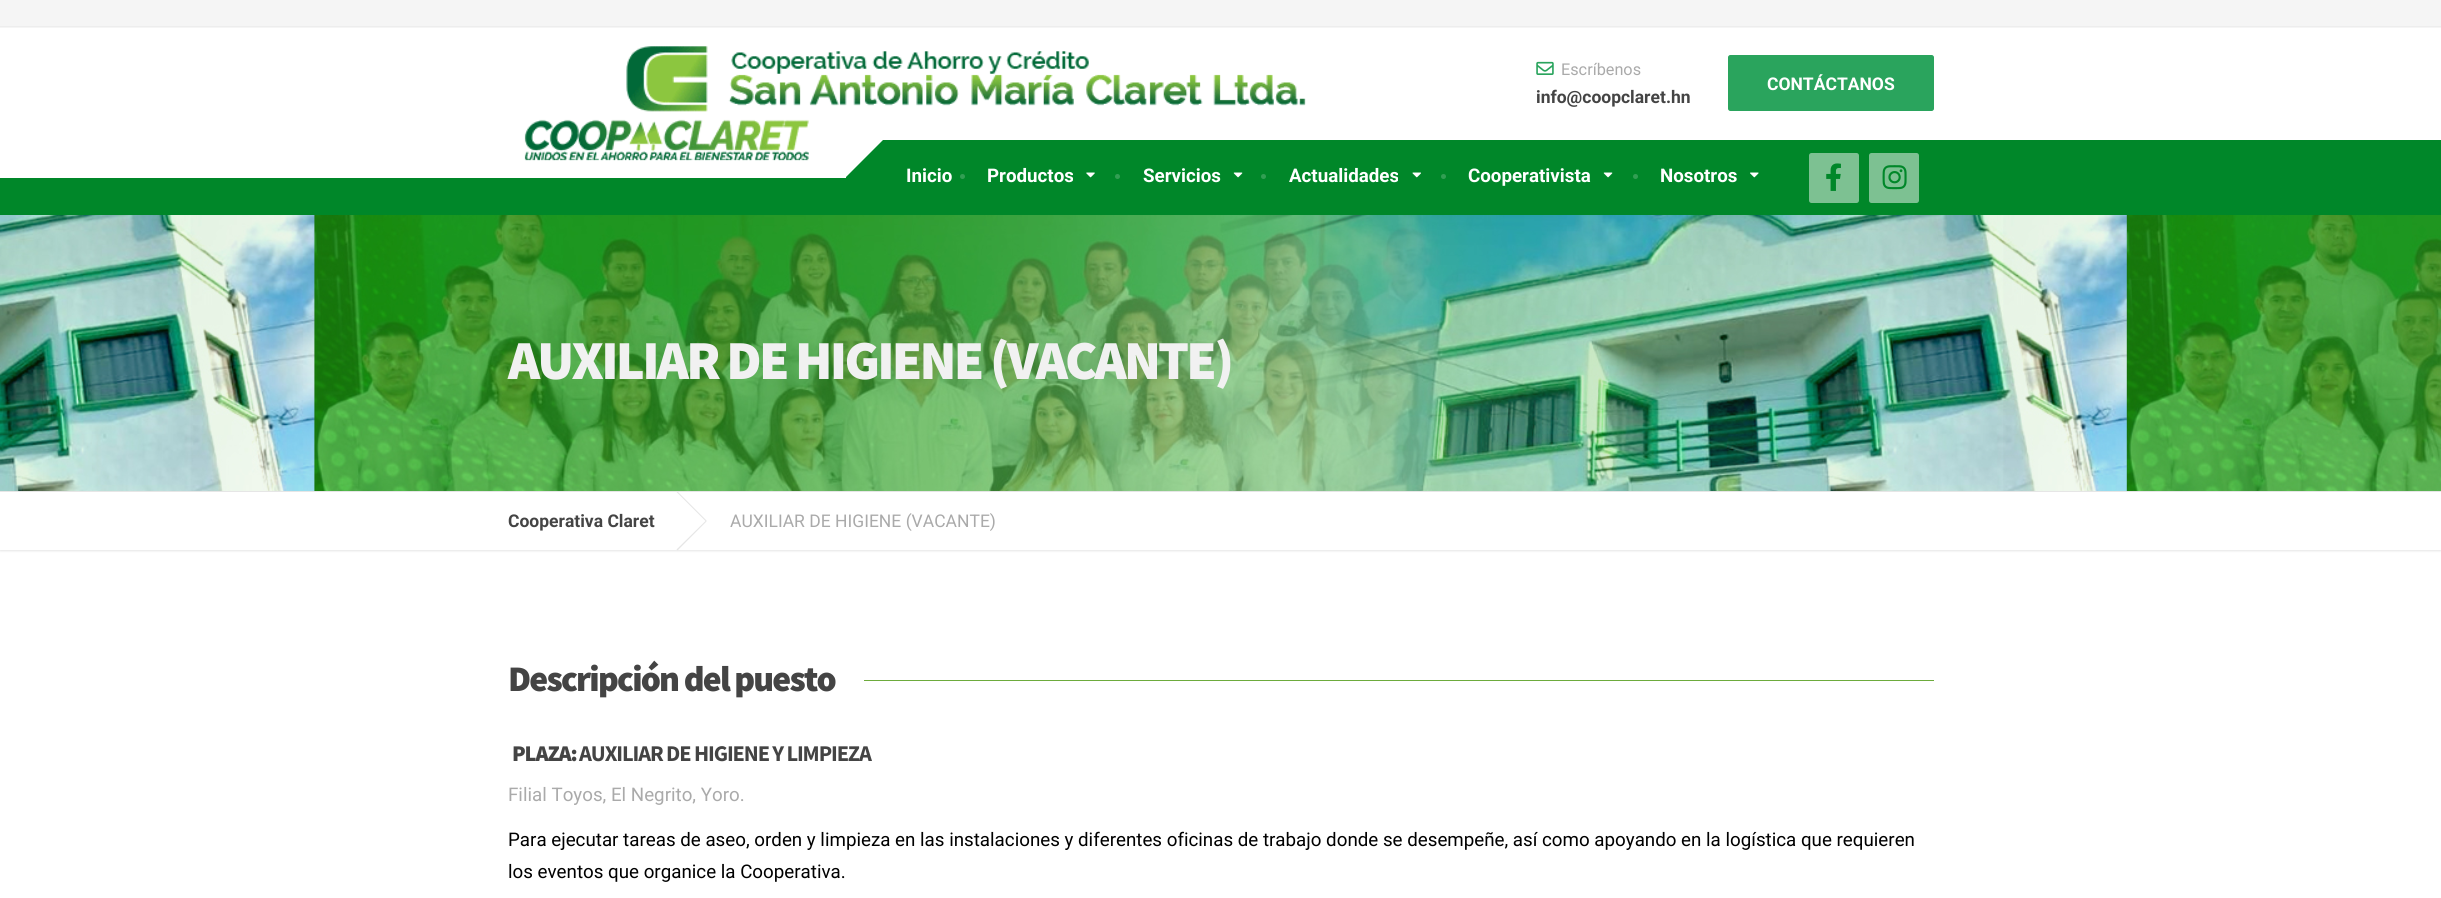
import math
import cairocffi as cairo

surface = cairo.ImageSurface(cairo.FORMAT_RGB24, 2441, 898)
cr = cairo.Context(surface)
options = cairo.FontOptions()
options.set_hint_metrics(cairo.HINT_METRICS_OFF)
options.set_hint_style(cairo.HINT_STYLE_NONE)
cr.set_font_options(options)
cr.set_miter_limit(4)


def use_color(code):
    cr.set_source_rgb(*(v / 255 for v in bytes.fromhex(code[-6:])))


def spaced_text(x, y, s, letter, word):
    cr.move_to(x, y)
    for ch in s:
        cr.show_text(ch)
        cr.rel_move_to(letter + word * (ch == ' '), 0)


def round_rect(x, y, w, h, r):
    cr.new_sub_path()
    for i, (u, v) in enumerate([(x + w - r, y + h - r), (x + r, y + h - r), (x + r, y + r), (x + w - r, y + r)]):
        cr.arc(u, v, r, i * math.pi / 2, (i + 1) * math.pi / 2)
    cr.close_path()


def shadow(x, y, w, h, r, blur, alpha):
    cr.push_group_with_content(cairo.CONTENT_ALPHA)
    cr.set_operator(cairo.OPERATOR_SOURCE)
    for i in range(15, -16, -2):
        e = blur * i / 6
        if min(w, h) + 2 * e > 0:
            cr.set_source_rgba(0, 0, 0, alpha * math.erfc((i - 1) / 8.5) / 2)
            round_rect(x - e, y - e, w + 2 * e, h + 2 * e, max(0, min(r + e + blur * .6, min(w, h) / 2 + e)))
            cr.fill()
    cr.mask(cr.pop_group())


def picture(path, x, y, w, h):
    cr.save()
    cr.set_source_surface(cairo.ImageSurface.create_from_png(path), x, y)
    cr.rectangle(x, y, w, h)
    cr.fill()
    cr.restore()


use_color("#ffffff")
cr.paint()
use_color("#f5f5f5")
cr.rectangle(0, 0, 2441, 28)
cr.fill()
use_color("#ededed")
cr.rectangle(0, 26, 2441, 1)
cr.fill()
use_color("#008729")
cr.rectangle(0, 140, 2441, 75)
cr.fill()
use_color("#ffffff")
cr.rectangle(0, 140, 846, 38)
cr.fill()
cr.new_path()
cr.move_to(884, 139)
cr.line_to(846, 177)
cr.line_to(808, 139)
cr.line_to(846, 101)
cr.close_path()
cr.fill()
picture("img1.png", 524, 46, 782, 115)
picture("img2.png", 1536, 61, 18, 14)
cr.select_font_face("Roboto")
cr.set_font_size(16.25)
use_color("#aaaaaa")
cr.move_to(1561, 75)
cr.show_text("Escríbenos")
cr.select_font_face("Roboto", cairo.FONT_SLANT_NORMAL, cairo.FONT_WEIGHT_BOLD)
cr.set_font_size(17.5)
use_color("#444444")
cr.move_to(1536, 103)
cr.show_text("info@coopclaret.hn")
use_color("#2aa45d")
round_rect(1728.5, 55.5, 205, 55, 2)
cr.fill_preserve()
cr.set_line_width(1)
cr.stroke()
use_color("#ffffff")
cr.move_to(1767, 90)
cr.show_text("CONTÁCTANOS")
cr.set_font_size(18.75)
cr.move_to(906, 182)
cr.show_text("Inicio")
use_color("#329e53")
cr.new_path()
cr.arc(962.5, 176.5, 2.5, 0, 2 * math.pi)
cr.fill()
use_color("#ffffff")
cr.move_to(987, 182)
cr.show_text("Productos")
use_color("#329e53")
cr.new_path()
cr.arc(1117.5, 176.5, 2.5, 0, 2 * math.pi)
cr.fill()
picture("img3.png", 1086, 172, 9, 6)
use_color("#ffffff")
cr.move_to(1143, 182)
cr.show_text("Servicios")
use_color("#329e53")
cr.new_path()
cr.arc(1263.5, 176.5, 2.5, 0, 2 * math.pi)
cr.fill()
picture("img4.png", 1233, 172, 10, 6)
use_color("#ffffff")
cr.move_to(1289, 182)
cr.show_text("Actualidades")
use_color("#329e53")
cr.new_path()
cr.arc(1443.5, 176.5, 2.5, 0, 2 * math.pi)
cr.fill()
picture("img5.png", 1412, 172, 9, 6)
use_color("#ffffff")
cr.move_to(1468, 182)
cr.show_text("Cooperativista")
use_color("#329e53")
cr.new_path()
cr.arc(1635.5, 176.5, 2.5, 0, 2 * math.pi)
cr.fill()
picture("img4.png", 1603, 172, 10, 6)
use_color("#ffffff")
cr.move_to(1660, 182)
cr.show_text("Nosotros")
picture("img6.png", 1750, 172, 9, 6)
use_color("#7dc192")
round_rect(1809, 153, 50, 50, 2.5)
cr.fill()
picture("img7.png", 1826, 163, 15, 28)
round_rect(1869, 153, 50, 50, 2.5)
cr.fill()
picture("img8.png", 1882, 165, 25, 25)
picture("img9.png", 0, 215, 2441, 276)
cr.select_font_face("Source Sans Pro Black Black")
cr.set_font_size(55)
use_color("#f1f1f1")
spaced_text(508, 379, "AUXILIAR DE HIGIENE (VACANTE)", -2.75, 0)
cr.save()
cr.rectangle(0, 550, 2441, 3)
cr.clip()
use_color("#e6e6e6")
shadow(0, 493, 2441, 58, 0, 1, 1)
cr.restore()
use_color("#e6e6e6")
cr.rectangle(0, 491, 2441, 1)
cr.fill()
cr.select_font_face("Roboto", cairo.FONT_SLANT_NORMAL, cairo.FONT_WEIGHT_BOLD)
cr.set_font_size(17.5)
use_color("#444444")
cr.move_to(508, 527)
cr.show_text("Cooperativa Claret")
use_color("#e6e6e6")
cr.new_path()
cr.move_to(676.5, 492)
cr.line_to(677.5, 491.5)
cr.line_to(706.5, 520.5)
cr.line_to(706, 521.5)
cr.close_path()
cr.fill()
cr.new_path()
cr.move_to(706, 520.5)
cr.line_to(706.5, 521.5)
cr.line_to(677.5, 550.5)
cr.line_to(676.5, 549.5)
cr.close_path()
cr.fill()
cr.select_font_face("Roboto")
use_color("#aaaaaa")
cr.move_to(730, 527)
cr.show_text("AUXILIAR DE HIGIENE (VACANTE)")
cr.select_font_face("Source Sans Pro Black Black")
cr.set_font_size(36)
use_color("#444444")
spaced_text(508, 691, "Descripción del puesto", -1.8, 0)
use_color("#6dab3c")
cr.rectangle(864, 680, 1070, 1)
cr.fill()
cr.set_font_size(22.5)
use_color("#444444")
spaced_text(512, 761, "PLAZA:", -1.1, 0)
cr.select_font_face("Source Sans Pro", cairo.FONT_SLANT_NORMAL, cairo.FONT_WEIGHT_BOLD)
spaced_text(579, 761, "AUXILIAR DE HIGIENE Y LIMPIEZA", -1.1, 0)
cr.select_font_face("Roboto")
cr.set_font_size(18.75)
use_color("#aaaaaa")
cr.move_to(508, 801)
cr.show_text("Filial Toyos, El Negrito, Yoro.")
use_color("#000000")
cr.move_to(508, 846)
cr.show_text("Para ejecutar tareas de aseo, orden y limpieza en las instalaciones y diferentes oficinas de trabajo donde se desempeñe, así como apoyando en la logística que requieren")
cr.move_to(508, 878)
cr.show_text("los eventos que organice la Cooperativa.")
surface.write_to_png("result.png")
